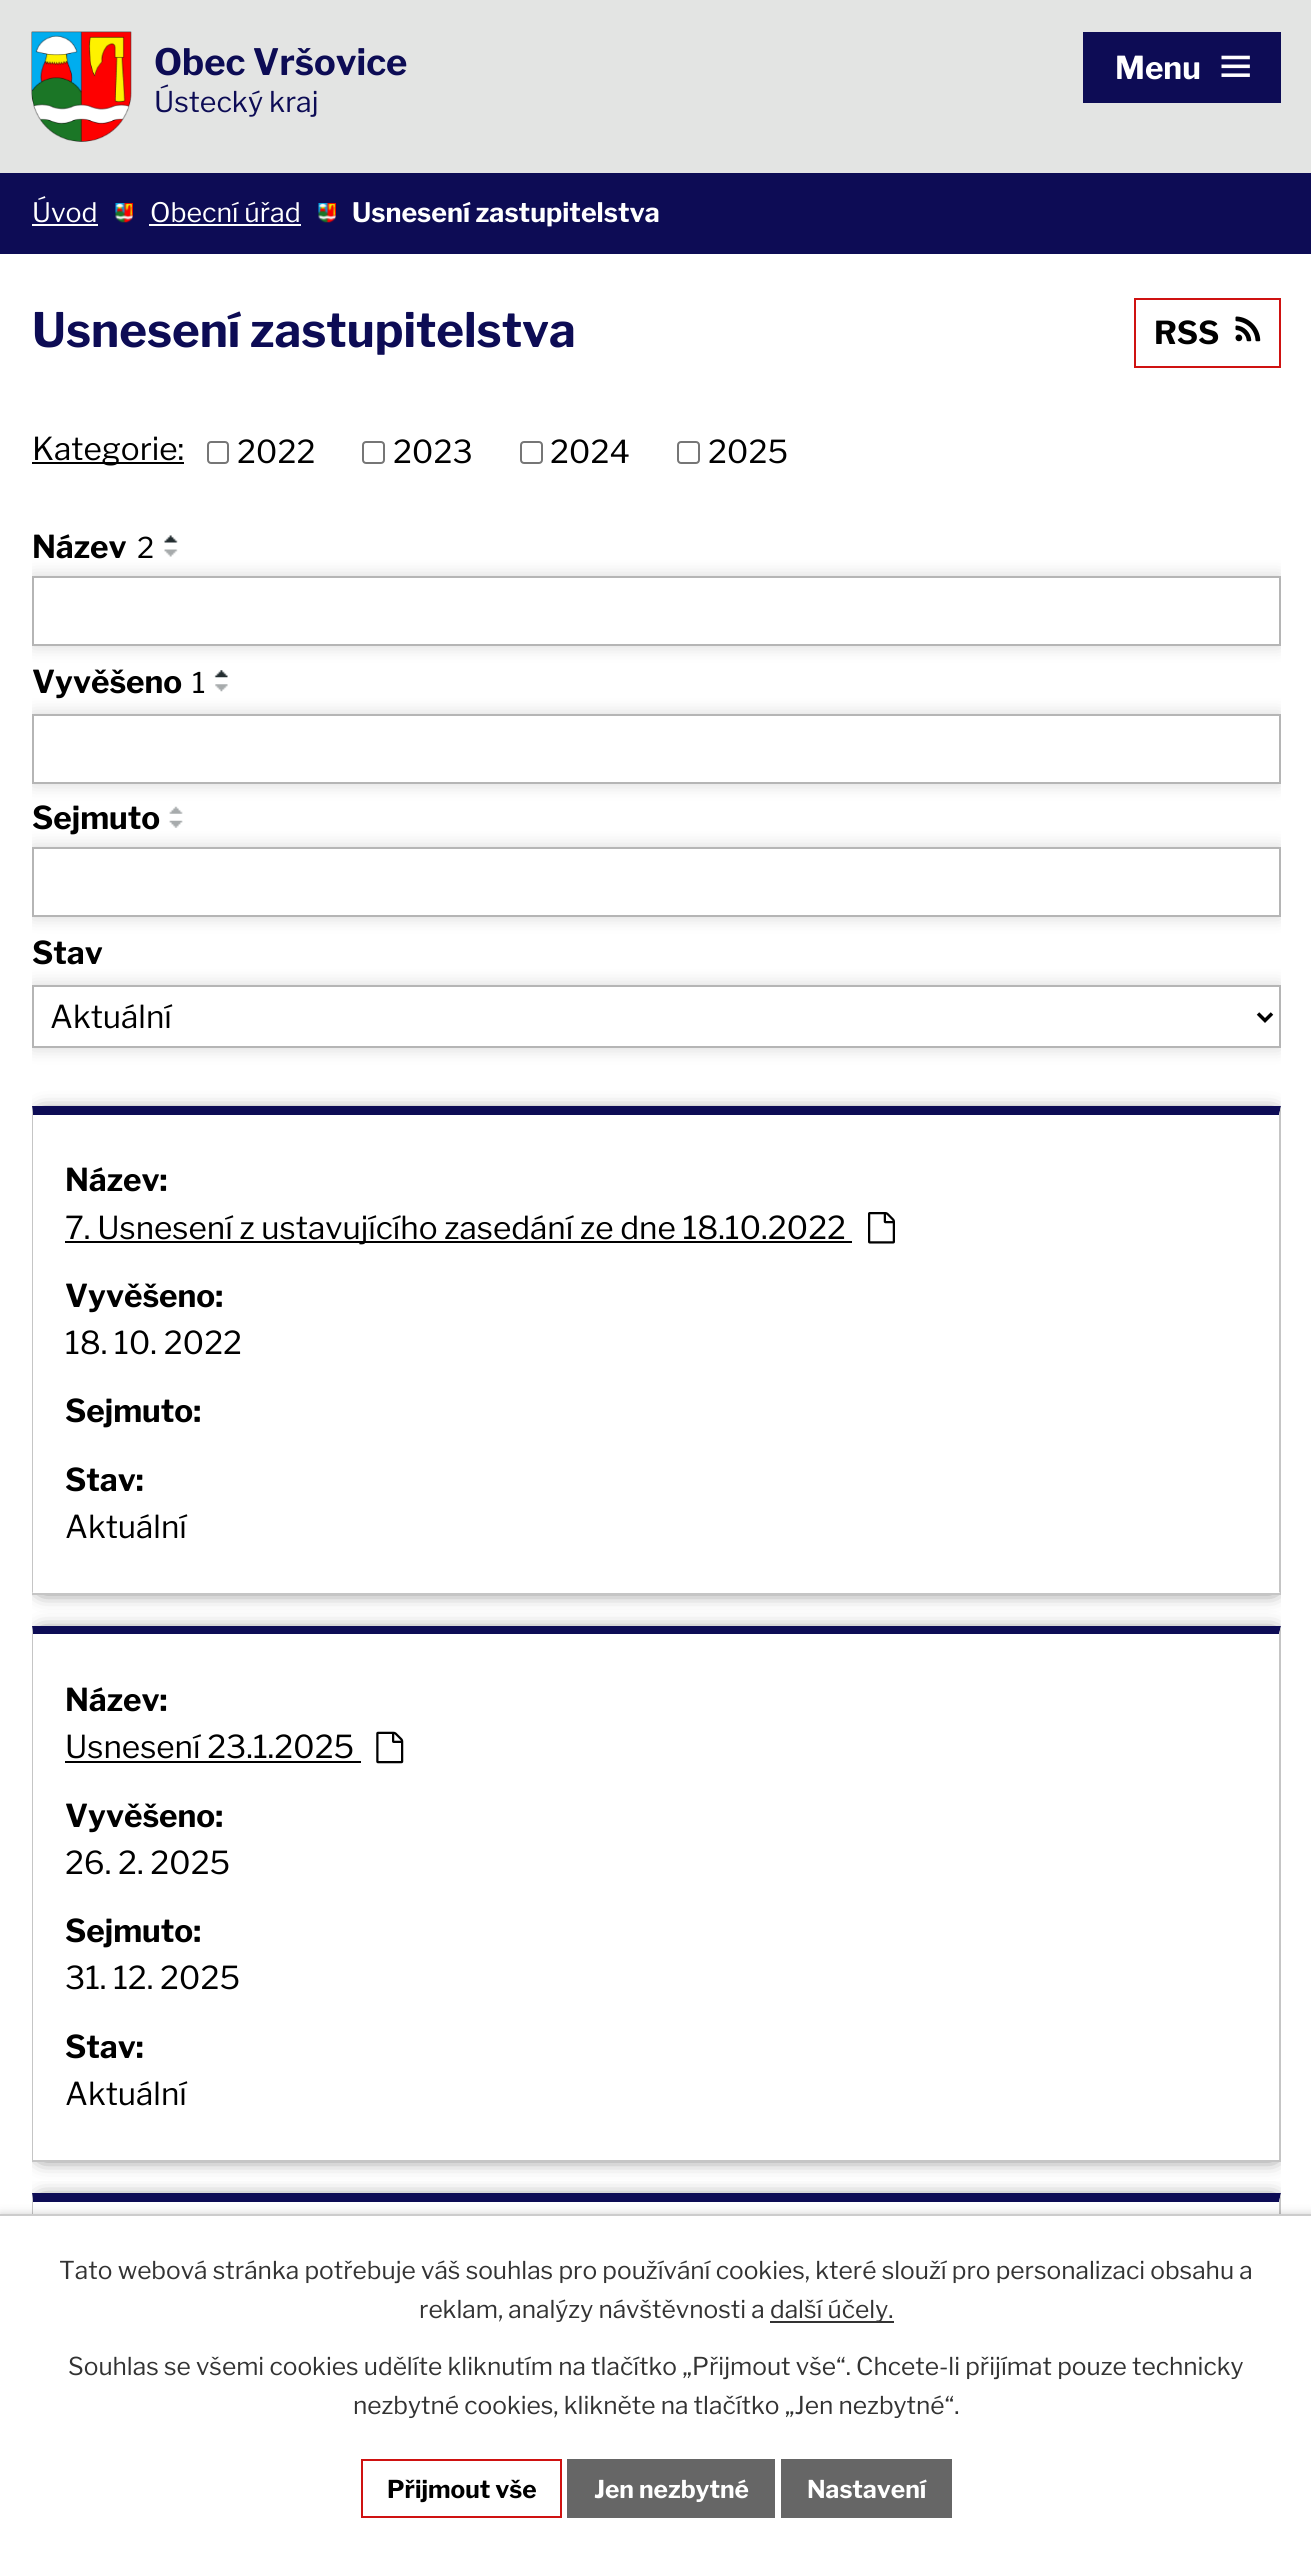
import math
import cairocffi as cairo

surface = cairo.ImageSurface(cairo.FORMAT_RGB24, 1311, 2551)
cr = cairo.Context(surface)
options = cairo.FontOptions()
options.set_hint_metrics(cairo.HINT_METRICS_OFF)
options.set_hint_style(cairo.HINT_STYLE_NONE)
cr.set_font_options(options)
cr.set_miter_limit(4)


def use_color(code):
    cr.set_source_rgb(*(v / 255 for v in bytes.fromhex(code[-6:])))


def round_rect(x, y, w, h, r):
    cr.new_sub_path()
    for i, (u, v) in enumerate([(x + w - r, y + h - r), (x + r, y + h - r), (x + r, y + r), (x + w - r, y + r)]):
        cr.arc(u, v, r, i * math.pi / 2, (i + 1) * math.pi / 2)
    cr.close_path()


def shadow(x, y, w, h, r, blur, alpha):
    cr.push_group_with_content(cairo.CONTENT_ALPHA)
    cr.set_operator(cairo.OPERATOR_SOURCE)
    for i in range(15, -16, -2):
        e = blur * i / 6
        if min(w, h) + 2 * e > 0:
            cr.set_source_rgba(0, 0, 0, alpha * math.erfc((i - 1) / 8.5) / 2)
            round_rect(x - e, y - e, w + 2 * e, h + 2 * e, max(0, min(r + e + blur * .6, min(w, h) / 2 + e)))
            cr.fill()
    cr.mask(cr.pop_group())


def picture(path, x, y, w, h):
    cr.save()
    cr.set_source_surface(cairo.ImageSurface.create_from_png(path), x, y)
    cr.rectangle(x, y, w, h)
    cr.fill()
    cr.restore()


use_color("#ffffff")
cr.paint()
use_color("#e3e4e3")
cr.rectangle(0, 0, 1311, 173)
cr.fill()
picture("img1.png", 31, 31, 101, 111)
cr.select_font_face("Libre Franklin", cairo.FONT_SLANT_NORMAL, cairo.FONT_WEIGHT_BOLD)
cr.set_font_size(36.25)
use_color("#0d0c55")
cr.move_to(154, 75)
cr.show_text("Obec Vršovice")
cr.select_font_face("Libre Franklin")
cr.set_font_size(28.5)
cr.move_to(154, 112)
cr.show_text("Ústecký kraj")
cr.rectangle(1083, 32, 198, 71)
cr.fill()
cr.select_font_face("Libre Franklin", cairo.FONT_SLANT_NORMAL, cairo.FONT_WEIGHT_BOLD)
cr.set_font_size(31.5)
use_color("#ffffff")
cr.move_to(1115, 79)
cr.show_text("Menu")
picture("img2.png", 1221, 55, 29, 22)
use_color("#0d0c55")
cr.rectangle(0, 173, 1311, 81)
cr.fill()
cr.select_font_face("Libre Franklin")
cr.set_font_size(26.75)
use_color("#ffffff")
cr.move_to(32, 222)
cr.show_text("Úvod")
cr.rectangle(32, 224, 66, 2)
cr.fill()
picture("img3.png", 115, 203, 18, 20)
cr.move_to(150, 222)
cr.show_text("Obecní úřad")
cr.rectangle(149, 224, 152, 2)
cr.fill()
picture("img3.png", 318, 203, 18, 20)
cr.select_font_face("Libre Franklin", cairo.FONT_SLANT_NORMAL, cairo.FONT_WEIGHT_BOLD)
cr.move_to(352, 222)
cr.show_text("Usnesení zastupitelstva")
cr.set_font_size(47.25)
use_color("#0d0c55")
cr.move_to(32, 347)
cr.show_text("Usnesení zastupitelstva")
cr.rectangle(1135, 299, 145, 68)
use_color("#cf1211")
cr.stroke()
cr.set_font_size(31.5)
use_color("#000000")
cr.move_to(1154, 344)
cr.show_text("RSS")
picture("img4.png", 1235, 316, 26, 26)
cr.rectangle(32, 462, 152, 2)
cr.fill()
cr.select_font_face("Libre Franklin")
cr.move_to(32, 460)
cr.show_text("Kategorie:")
round_rect(208, 442, 20, 21, 3)
use_color("#767676")
cr.stroke()
use_color("#000000")
cr.move_to(237, 463)
cr.show_text("2022")
round_rect(363, 442, 21, 21, 3)
use_color("#767676")
cr.stroke()
use_color("#000000")
cr.move_to(393, 463)
cr.show_text("2023")
round_rect(521, 442, 21, 21, 3)
use_color("#767676")
cr.stroke()
use_color("#000000")
cr.move_to(550, 463)
cr.show_text("2024")
round_rect(678, 442, 21, 21, 3)
use_color("#767676")
cr.stroke()
use_color("#000000")
cr.move_to(708, 463)
cr.show_text("2025")
cr.select_font_face("Libre Franklin", cairo.FONT_SLANT_NORMAL, cairo.FONT_WEIGHT_BOLD)
cr.move_to(32, 558)
cr.show_text("Název")
cr.select_font_face("Libre Franklin")
cr.set_font_size(28.5)
cr.move_to(137, 558)
cr.show_text("2")
picture("img5.png", 164, 535, 14, 8)
picture("img6.png", 164, 549, 14, 8)
cr.select_font_face("Libre Franklin", cairo.FONT_SLANT_NORMAL, cairo.FONT_WEIGHT_BOLD)
cr.set_font_size(31.5)
cr.move_to(32, 693)
cr.show_text("Vyvěšeno")
cr.select_font_face("Libre Franklin")
cr.set_font_size(28.5)
cr.move_to(192, 693)
cr.show_text("1")
picture("img7.png", 214, 670, 14, 8)
picture("img8.png", 215, 684, 13, 8)
cr.select_font_face("Libre Franklin", cairo.FONT_SLANT_NORMAL, cairo.FONT_WEIGHT_BOLD)
cr.set_font_size(31.5)
cr.move_to(32, 829)
cr.show_text("Sejmuto")
picture("img9.png", 169, 806, 14, 8)
picture("img10.png", 169, 820, 14, 8)
cr.move_to(32, 964)
cr.show_text("Stav")
cr.save()
cr.rectangle(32, 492, 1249, 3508)
cr.clip()
use_color("#000000")
shadow(32, 576, 1249, 70, 0, 9, 0.16)
cr.restore()
use_color("#ffffff")
cr.rectangle(33, 577, 1247, 68)
cr.fill_preserve()
use_color("#b5b5b5")
cr.stroke()
cr.save()
cr.rectangle(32, 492, 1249, 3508)
cr.clip()
cr.set_fill_rule(cairo.FILL_RULE_EVEN_ODD)
cr.new_path()
cr.move_to(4, 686)
cr.line_to(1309, 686)
cr.line_to(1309, 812)
cr.line_to(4, 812)
cr.close_path()
cr.move_to(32, 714)
cr.line_to(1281, 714)
cr.line_to(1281, 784)
cr.line_to(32, 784)
cr.close_path()
cr.clip()
use_color("#000000")
shadow(32, 714, 1249, 70, 0, 9, 0.16)
cr.restore()
cr.rectangle(33, 715, 1247, 68)
cr.stroke()
cr.save()
cr.rectangle(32, 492, 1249, 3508)
cr.clip()
cr.set_fill_rule(cairo.FILL_RULE_EVEN_ODD)
cr.new_path()
cr.move_to(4, 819)
cr.line_to(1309, 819)
cr.line_to(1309, 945)
cr.line_to(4, 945)
cr.close_path()
cr.move_to(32, 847)
cr.line_to(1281, 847)
cr.line_to(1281, 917)
cr.line_to(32, 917)
cr.close_path()
cr.clip()
use_color("#000000")
shadow(32, 847, 1249, 70, 0, 9, 0.16)
cr.restore()
cr.rectangle(33, 848, 1247, 68)
cr.stroke()
cr.save()
cr.rectangle(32, 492, 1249, 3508)
cr.clip()
use_color("#000000")
shadow(32, 985, 1249, 63, 0, 9, 0.16)
cr.restore()
use_color("#ffffff")
cr.rectangle(33, 986, 1247, 61)
cr.fill_preserve()
use_color("#b5b5b5")
cr.stroke()
cr.new_path()
cr.move_to(1258, 1013.5)
cr.line_to(1265, 1020.5)
cr.line_to(1272, 1013.5)
use_color("#000000")
cr.set_line_width(3.5)
cr.stroke()
cr.select_font_face("Libre Franklin")
cr.move_to(50, 1028)
cr.show_text("Aktuální")
cr.save()
cr.rectangle(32, 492, 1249, 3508)
cr.clip()
cr.set_fill_rule(cairo.FILL_RULE_EVEN_ODD)
cr.new_path()
cr.move_to(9, 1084)
cr.line_to(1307, 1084)
cr.line_to(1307, 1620)
cr.line_to(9, 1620)
cr.close_path()
cr.move_to(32, 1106)
cr.line_to(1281, 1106)
cr.line_to(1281, 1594)
cr.line_to(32, 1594)
cr.close_path()
cr.clip()
use_color("#000000")
shadow(42, 1117, 1232, 470, 0, 10.5, 1)
cr.restore()
use_color("#0d0c55")
cr.new_path()
cr.move_to(32, 1106)
cr.line_to(1281, 1106)
cr.line_to(1279, 1115)
cr.line_to(33, 1115)
cr.close_path()
cr.fill()
use_color("#c5c5c5")
cr.new_path()
cr.move_to(1281, 1106)
cr.line_to(1281, 1594)
cr.line_to(1279, 1592)
cr.line_to(1279, 1115)
cr.close_path()
cr.fill()
cr.rectangle(32, 1593, 1249, 2)
cr.fill()
cr.new_path()
cr.move_to(32, 1594)
cr.line_to(32, 1106)
cr.line_to(33, 1115)
cr.line_to(33, 1592)
cr.close_path()
cr.fill()
cr.select_font_face("Libre Franklin", cairo.FONT_SLANT_NORMAL, cairo.FONT_WEIGHT_BOLD)
use_color("#000000")
cr.move_to(65, 1191)
cr.show_text("Název:")
cr.rectangle(65, 1241, 787, 2)
cr.fill()
cr.select_font_face("Libre Franklin")
cr.move_to(65, 1239)
cr.show_text("7. Usnesení z ustavujícího zasedání ze dne 18.10.2022")
picture("img11.png", 868, 1212, 27, 32)
cr.select_font_face("Libre Franklin", cairo.FONT_SLANT_NORMAL, cairo.FONT_WEIGHT_BOLD)
cr.move_to(65, 1307)
cr.show_text("Vyvěšeno:")
cr.select_font_face("Libre Franklin")
cr.move_to(65, 1354)
cr.show_text("18. 10. 2022")
cr.select_font_face("Libre Franklin", cairo.FONT_SLANT_NORMAL, cairo.FONT_WEIGHT_BOLD)
cr.move_to(65, 1422)
cr.show_text("Sejmuto:")
cr.move_to(65, 1491)
cr.show_text("Stav:")
cr.select_font_face("Libre Franklin")
cr.move_to(65, 1538)
cr.show_text("Aktuální")
cr.save()
cr.rectangle(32, 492, 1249, 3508)
cr.clip()
cr.set_fill_rule(cairo.FILL_RULE_EVEN_ODD)
cr.new_path()
cr.move_to(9, 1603)
cr.line_to(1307, 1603)
cr.line_to(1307, 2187)
cr.line_to(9, 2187)
cr.close_path()
cr.move_to(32, 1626)
cr.line_to(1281, 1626)
cr.line_to(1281, 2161)
cr.line_to(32, 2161)
cr.close_path()
cr.clip()
use_color("#000000")
shadow(42, 1636, 1232, 518, 0, 10.5, 1)
cr.restore()
use_color("#0d0c55")
cr.new_path()
cr.move_to(32, 1626)
cr.line_to(1281, 1626)
cr.line_to(1279, 1634)
cr.line_to(33, 1634)
cr.close_path()
cr.fill()
use_color("#c5c5c5")
cr.new_path()
cr.move_to(1281, 1626)
cr.line_to(1281, 2161)
cr.line_to(1279, 2160)
cr.line_to(1279, 1634)
cr.close_path()
cr.fill()
cr.rectangle(32, 2160, 1249, 2)
cr.fill()
cr.new_path()
cr.move_to(32, 2161)
cr.line_to(32, 1626)
cr.line_to(33, 1634)
cr.line_to(33, 2160)
cr.close_path()
cr.fill()
cr.select_font_face("Libre Franklin", cairo.FONT_SLANT_NORMAL, cairo.FONT_WEIGHT_BOLD)
use_color("#000000")
cr.move_to(65, 1711)
cr.show_text("Název:")
cr.select_font_face("Libre Franklin")
cr.move_to(65, 1758)
cr.show_text("Usnesení 23.1.2025")
cr.rectangle(65, 1761, 296, 2)
cr.fill()
picture("img12.png", 376, 1731, 28, 33)
cr.select_font_face("Libre Franklin", cairo.FONT_SLANT_NORMAL, cairo.FONT_WEIGHT_BOLD)
cr.move_to(65, 1827)
cr.show_text("Vyvěšeno:")
cr.select_font_face("Libre Franklin")
cr.move_to(65, 1874)
cr.show_text("26. 2. 2025")
cr.select_font_face("Libre Franklin", cairo.FONT_SLANT_NORMAL, cairo.FONT_WEIGHT_BOLD)
cr.move_to(65, 1942)
cr.show_text("Sejmuto:")
cr.select_font_face("Libre Franklin")
cr.move_to(65, 1989)
cr.show_text("31. 12. 2025")
cr.select_font_face("Libre Franklin", cairo.FONT_SLANT_NORMAL, cairo.FONT_WEIGHT_BOLD)
cr.move_to(65, 2058)
cr.show_text("Stav:")
cr.select_font_face("Libre Franklin")
cr.move_to(65, 2105)
cr.show_text("Aktuální")
cr.save()
cr.rectangle(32, 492, 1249, 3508)
cr.clip()
cr.rectangle(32, 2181, 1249, 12)
cr.clip()
use_color("#000000")
shadow(42, 2203, 1232, 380, 0, 10.5, 1)
cr.restore()
use_color("#0d0c55")
cr.new_path()
cr.move_to(32, 2193)
cr.line_to(1281, 2193)
cr.line_to(1279, 2202)
cr.line_to(33, 2202)
cr.close_path()
cr.fill()
use_color("#c5c5c5")
cr.new_path()
cr.move_to(1281, 2193)
cr.line_to(1281, 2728)
cr.line_to(1279, 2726)
cr.line_to(1279, 2202)
cr.close_path()
cr.fill()
cr.new_path()
cr.move_to(32, 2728)
cr.line_to(32, 2193)
cr.line_to(33, 2202)
cr.line_to(33, 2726)
cr.close_path()
cr.fill()
use_color("#000000")
shadow(0, 2214, 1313, 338, 0, 4.5, 0.2)
use_color("#ffffff")
cr.rectangle(0, 2216, 1311, 335)
cr.fill()
use_color("#cccccc")
cr.rectangle(0, 2214, 1311, 2)
cr.fill()
cr.set_font_size(24.5)
use_color("#333333")
cr.move_to(59, 2279)
cr.show_text("Tato webová stránka potřebuje váš souhlas pro používání cookies, které slouží pro personalizaci obsahu a")
cr.move_to(419, 2318)
cr.show_text("reklam, analýzy návštěvnosti a")
cr.rectangle(770, 2321, 124, 2)
cr.fill()
cr.move_to(770, 2318)
cr.show_text("další účely.")
cr.move_to(68, 2375)
cr.show_text("Souhlas se všemi cookies udělíte kliknutím na tlačítko „Přijmout vše“. Chcete-li přijímat pouze technicky")
cr.move_to(353, 2414)
cr.show_text("nezbytné cookies, klikněte na tlačítko „Jen nezbytné“.")
cr.rectangle(362, 2460, 199, 57)
use_color("#cf1211")
cr.set_line_width(2)
cr.stroke()
cr.select_font_face("Libre Franklin", cairo.FONT_SLANT_NORMAL, cairo.FONT_WEIGHT_BOLD)
use_color("#000000")
cr.move_to(387, 2498)
cr.show_text("Přijmout vše")
use_color("#666666")
cr.rectangle(567, 2459, 208, 59)
cr.fill()
use_color("#ffffff")
cr.move_to(594, 2498)
cr.show_text("Jen nezbytné")
use_color("#666666")
cr.rectangle(781, 2459, 171, 59)
cr.fill()
use_color("#ffffff")
cr.move_to(807, 2498)
cr.show_text("Nastavení")
surface.write_to_png("result.png")
